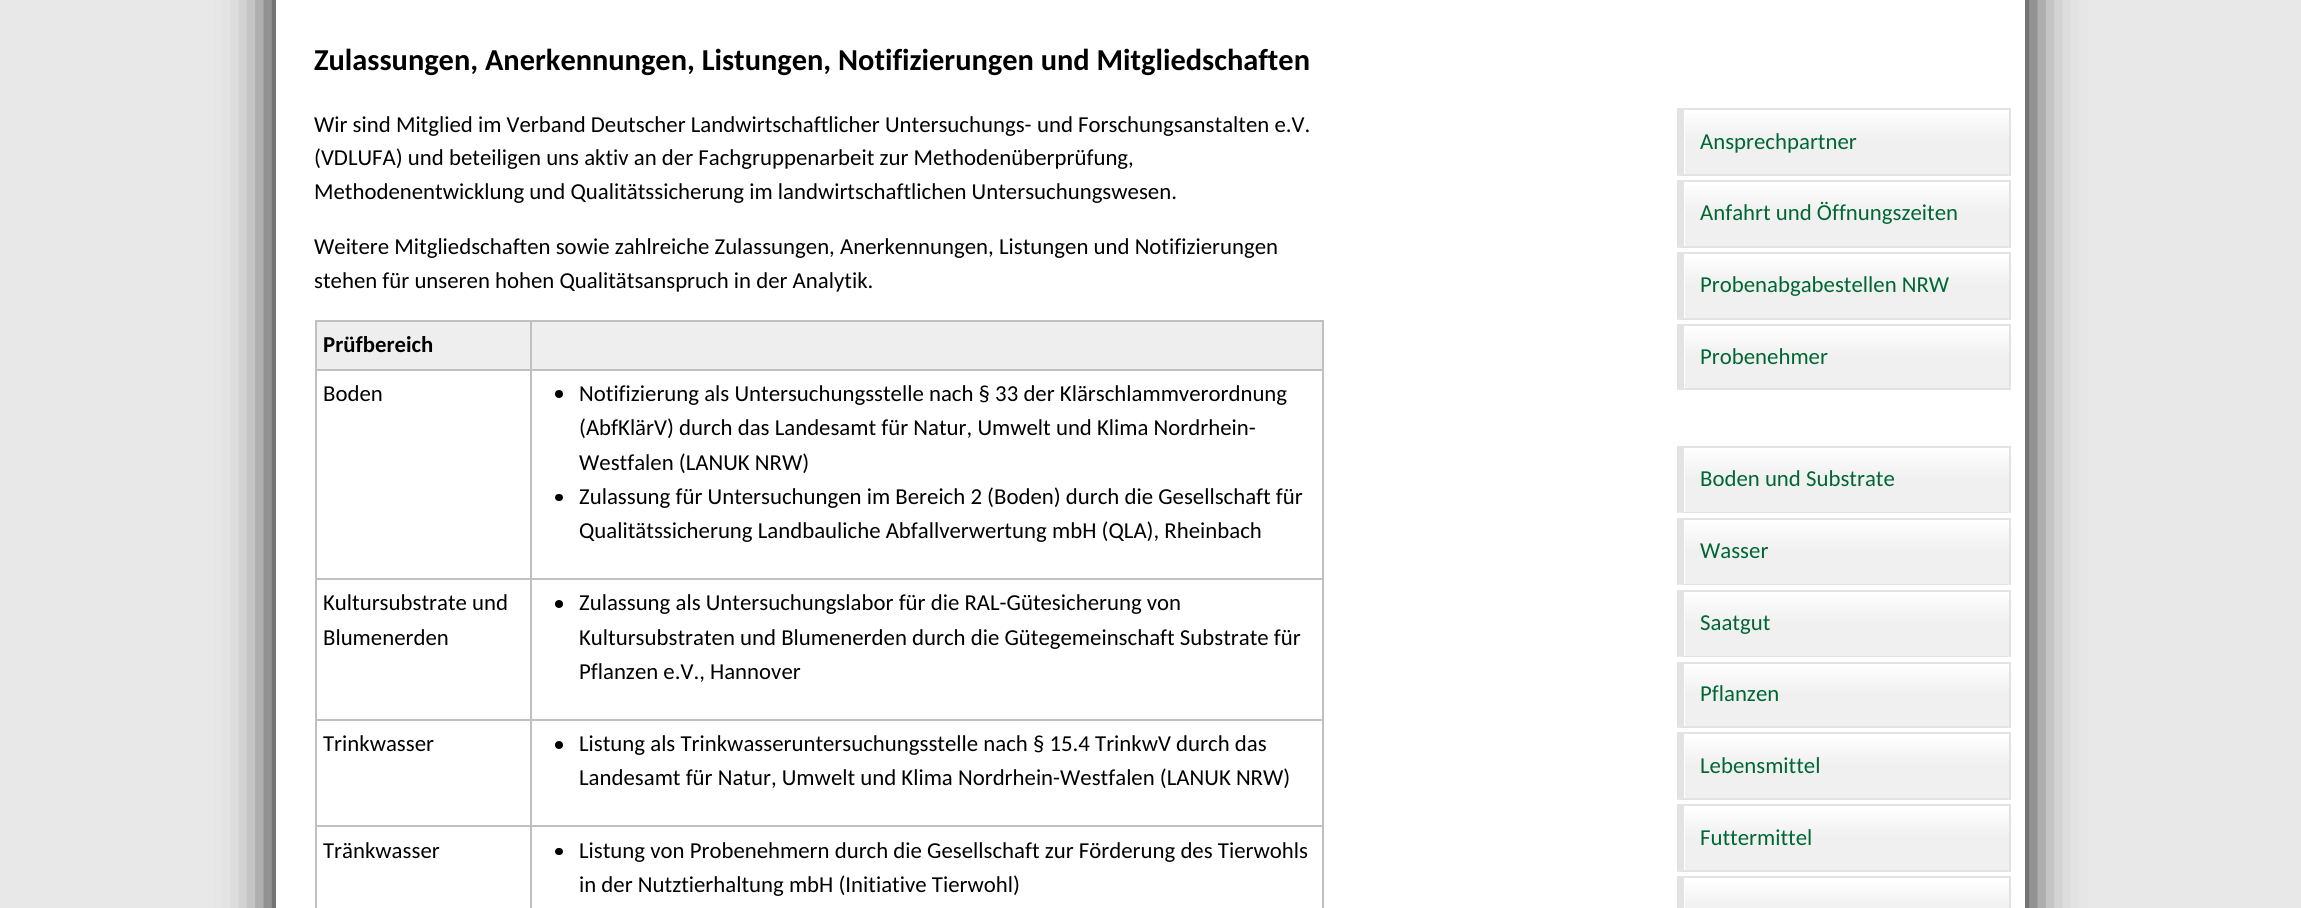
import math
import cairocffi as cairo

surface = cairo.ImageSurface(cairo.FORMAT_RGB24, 2301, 908)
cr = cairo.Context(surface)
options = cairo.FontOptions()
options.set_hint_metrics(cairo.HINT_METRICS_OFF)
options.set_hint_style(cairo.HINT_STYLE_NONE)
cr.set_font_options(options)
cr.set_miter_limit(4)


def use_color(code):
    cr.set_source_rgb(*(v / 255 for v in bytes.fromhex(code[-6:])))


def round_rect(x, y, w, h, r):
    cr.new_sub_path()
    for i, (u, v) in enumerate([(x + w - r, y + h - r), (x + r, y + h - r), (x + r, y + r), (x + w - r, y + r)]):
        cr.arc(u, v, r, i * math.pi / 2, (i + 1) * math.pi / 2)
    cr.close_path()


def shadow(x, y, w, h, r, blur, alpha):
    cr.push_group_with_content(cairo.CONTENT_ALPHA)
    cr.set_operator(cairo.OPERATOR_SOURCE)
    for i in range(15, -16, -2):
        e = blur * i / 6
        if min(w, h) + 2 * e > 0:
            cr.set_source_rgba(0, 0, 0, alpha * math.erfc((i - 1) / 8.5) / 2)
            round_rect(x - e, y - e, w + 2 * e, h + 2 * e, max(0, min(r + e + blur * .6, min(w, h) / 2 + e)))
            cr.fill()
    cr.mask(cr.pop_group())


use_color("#e8e8e8")
cr.paint()
use_color("#000000")
shadow(276, -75, 1749, 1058, 0, 25, 1)
use_color("#ffffff")
cr.rectangle(276, 0, 1749, 908)
cr.fill()
cr.select_font_face("Carlito", cairo.FONT_SLANT_NORMAL, cairo.FONT_WEIGHT_BOLD)
cr.set_font_size(30.4)
use_color("#000000")
cr.move_to(314, 70)
cr.show_text("Zulassungen, Anerkennungen, Listungen, Notifizierungen und Mitgliedschaften")
cr.select_font_face("Carlito")
cr.set_font_size(22.8)
cr.move_to(314, 132)
cr.show_text("Wir sind Mitglied im Verband Deutscher Landwirtschaftlicher Untersuchungs-")
cr.move_to(1037, 132)
cr.show_text("und Forschungsanstalten e.V.")
cr.move_to(314, 165)
cr.show_text("(VDLUFA) und beteiligen uns aktiv an der Fachgruppenarbeit zur Methodenüberprüfung,")
cr.move_to(314, 199)
cr.show_text("Methodenentwicklung und Qualitätssicherung im landwirtschaftlichen Untersuchungswesen.")
cr.move_to(314, 254)
cr.show_text("Weitere Mitgliedschaften sowie zahlreiche Zulassungen, Anerkennungen,")
cr.move_to(999, 254)
cr.show_text("Listungen und Notifizierungen")
cr.move_to(314, 288)
cr.show_text("stehen für unseren hohen Qualitätsanspruch in der Analytik.")
use_color("#eeeeee")
cr.rectangle(317, 322, 213, 47)
cr.fill()
use_color("#c0c0c0")
cr.rectangle(530, 320, 793, 2)
cr.fill()
cr.rectangle(530, 369, 793, 2)
cr.fill()
cr.rectangle(530, 578, 793, 2)
cr.fill()
cr.rectangle(530, 719, 793, 2)
cr.fill()
cr.rectangle(530, 825, 793, 2)
cr.fill()
cr.rectangle(530, 825, 2, 83)
cr.fill()
cr.rectangle(315, 825, 216, 2)
cr.fill()
cr.rectangle(530, 719, 2, 108)
cr.fill()
cr.rectangle(315, 719, 216, 2)
cr.fill()
cr.rectangle(530, 578, 2, 142)
cr.fill()
cr.rectangle(315, 578, 216, 2)
cr.fill()
cr.rectangle(530, 369, 2, 210)
cr.fill()
cr.rectangle(315, 369, 216, 2)
cr.fill()
cr.rectangle(530, 320, 2, 51)
cr.fill()
cr.rectangle(315, 320, 216, 2)
cr.fill()
cr.rectangle(315, 825, 2, 83)
cr.fill()
cr.rectangle(315, 719, 2, 108)
cr.fill()
cr.rectangle(315, 578, 2, 142)
cr.fill()
cr.rectangle(315, 369, 2, 210)
cr.fill()
cr.rectangle(315, 320, 2, 51)
cr.fill()
cr.select_font_face("Carlito", cairo.FONT_SLANT_NORMAL, cairo.FONT_WEIGHT_BOLD)
use_color("#000000")
cr.move_to(323, 352)
cr.show_text("Prüfbereich")
use_color("#eeeeee")
cr.rectangle(532, 322, 790, 47)
cr.fill()
use_color("#c0c0c0")
cr.rectangle(1322, 825, 2, 83)
cr.fill()
cr.rectangle(1322, 719, 2, 108)
cr.fill()
cr.rectangle(1322, 578, 2, 142)
cr.fill()
cr.rectangle(1322, 369, 2, 210)
cr.fill()
cr.rectangle(1322, 320, 2, 51)
cr.fill()
cr.select_font_face("Carlito")
use_color("#000000")
cr.move_to(323, 401)
cr.show_text("Boden")
cr.new_path()
cr.arc(559, 394, 4, 0, 2 * math.pi)
cr.fill()
cr.move_to(579, 401)
cr.show_text("Notifizierung als Untersuchungsstelle nach § 33 der Klärschlammverordnung")
cr.move_to(579, 435)
cr.show_text("(AbfKlärV) durch das Landesamt für Natur, Umwelt und Klima Nordrhein-")
cr.move_to(579, 470)
cr.show_text("Westfalen (LANUK NRW)")
round_rect(555, 494, 8, 7, 3.5)
cr.fill()
cr.move_to(579, 504)
cr.show_text("Zulassung für Untersuchungen im Bereich 2 (Boden) durch die Gesellschaft für")
cr.move_to(579, 538)
cr.show_text("Qualitätssicherung Landbauliche Abfallverwertung")
cr.move_to(1052, 538)
cr.show_text("mbH (QLA), Rheinbach")
cr.move_to(323, 610)
cr.show_text("Kultursubstrate und")
cr.move_to(323, 645)
cr.show_text("Blumenerden")
cr.new_path()
cr.arc(559, 604, 4, 0, 2 * math.pi)
cr.fill()
cr.move_to(579, 610)
cr.show_text("Zulassung als Untersuchungslabor für die RAL-Gütesicherung von")
cr.move_to(579, 645)
cr.show_text("Kultursubstraten und Blumenerden durch die Gütegemeinschaft Substrate für")
cr.move_to(579, 679)
cr.show_text("Pflanzen e.V., Hannover")
cr.move_to(323, 751)
cr.show_text("Trinkwasser")
cr.new_path()
cr.arc(559, 745, 4, 0, 2 * math.pi)
cr.fill()
cr.move_to(579, 751)
cr.show_text("Listung als Trinkwasseruntersuchungsstelle nach § 15.4 TrinkwV durch das")
cr.move_to(579, 785)
cr.show_text("Landesamt für Natur, Umwelt und Klima Nordrhein-Westfalen (LANUK NRW)")
cr.move_to(323, 858)
cr.show_text("Tränkwasser")
round_rect(555, 848, 8, 7, 3.5)
cr.fill()
cr.move_to(579, 858)
cr.show_text("Listung von Probenehmern durch die Gesellschaft zur Förderung des Tierwohls")
cr.move_to(579, 892)
cr.show_text("in der Nutztierhaltung mbH (Initiative Tierwohl)")
gradient = cairo.LinearGradient(1847, 109, 1847, 174)
gradient.add_color_stop_rgba(0, 1, 1, 1, 1)
gradient.add_color_stop_rgba(0.5, 0.941, 0.941, 0.941, 1)
cr.set_source(gradient)
cr.rectangle(1685, 114, 324, 60)
cr.fill()
use_color("#e3e3e3")
cr.rectangle(1677, 108, 333, 2)
cr.fill()
cr.rectangle(2009, 108, 2, 68)
cr.fill()
use_color("#e2e2e2")
cr.new_path()
cr.move_to(2010, 176)
cr.line_to(1677, 176)
cr.line_to(1684, 174)
cr.line_to(2008, 174)
cr.close_path()
cr.fill()
use_color("#e3e3e3")
cr.new_path()
cr.move_to(1677, 176)
cr.line_to(1677, 108)
cr.line_to(1684, 110)
cr.line_to(1684, 174)
cr.close_path()
cr.fill()
use_color("#006633")
cr.move_to(1700, 149)
cr.show_text("Ansprechpartner")
gradient = cairo.LinearGradient(1847, 181, 1847, 246)
gradient.add_color_stop_rgba(0, 1, 1, 1, 1)
gradient.add_color_stop_rgba(0.5, 0.941, 0.941, 0.941, 1)
cr.set_source(gradient)
cr.rectangle(1685, 186, 324, 60)
cr.fill()
use_color("#e3e3e3")
cr.rectangle(1677, 180, 333, 2)
cr.fill()
cr.rectangle(2009, 180, 2, 68)
cr.fill()
use_color("#e2e2e2")
cr.new_path()
cr.move_to(2010, 248)
cr.line_to(1677, 248)
cr.line_to(1684, 246)
cr.line_to(2008, 246)
cr.close_path()
cr.fill()
use_color("#e3e3e3")
cr.new_path()
cr.move_to(1677, 248)
cr.line_to(1677, 180)
cr.line_to(1684, 182)
cr.line_to(1684, 246)
cr.close_path()
cr.fill()
use_color("#006633")
cr.move_to(1700, 220)
cr.show_text("Anfahrt und Öffnungszeiten")
gradient = cairo.LinearGradient(1847, 254, 1847, 318)
gradient.add_color_stop_rgba(0, 1, 1, 1, 1)
gradient.add_color_stop_rgba(0.5, 0.941, 0.941, 0.941, 1)
cr.set_source(gradient)
cr.rectangle(1685, 259, 324, 59)
cr.fill()
use_color("#e3e3e3")
cr.rectangle(1677, 252, 333, 2)
cr.fill()
cr.rectangle(2009, 252, 2, 68)
cr.fill()
use_color("#e2e2e2")
cr.new_path()
cr.move_to(2010, 320)
cr.line_to(1677, 320)
cr.line_to(1684, 318)
cr.line_to(2008, 318)
cr.close_path()
cr.fill()
use_color("#e3e3e3")
cr.new_path()
cr.move_to(1677, 320)
cr.line_to(1677, 252)
cr.line_to(1684, 254)
cr.line_to(1684, 318)
cr.close_path()
cr.fill()
use_color("#006633")
cr.move_to(1700, 292)
cr.show_text("Probenabgabestellen NRW")
gradient = cairo.LinearGradient(1847, 326, 1847, 389)
gradient.add_color_stop_rgba(0, 1, 1, 1, 1)
gradient.add_color_stop_rgba(0.5, 0.941, 0.941, 0.941, 1)
cr.set_source(gradient)
cr.rectangle(1685, 331, 324, 58)
cr.fill()
use_color("#e3e3e3")
cr.rectangle(1677, 324, 333, 2)
cr.fill()
cr.rectangle(2009, 324, 2, 66)
cr.fill()
use_color("#e2e2e2")
cr.new_path()
cr.move_to(2010, 390)
cr.line_to(1677, 390)
cr.line_to(1684, 388)
cr.line_to(2008, 388)
cr.close_path()
cr.fill()
use_color("#e3e3e3")
cr.new_path()
cr.move_to(1677, 390)
cr.line_to(1677, 324)
cr.line_to(1684, 326)
cr.line_to(1684, 388)
cr.close_path()
cr.fill()
use_color("#006633")
cr.move_to(1700, 364)
cr.show_text("Probenehmer")
gradient = cairo.LinearGradient(1847, 447, 1847, 512)
gradient.add_color_stop_rgba(0, 1, 1, 1, 1)
gradient.add_color_stop_rgba(0.5, 0.941, 0.941, 0.941, 1)
cr.set_source(gradient)
cr.rectangle(1685, 452, 324, 60)
cr.fill()
use_color("#e3e3e3")
cr.rectangle(1677, 446, 333, 2)
cr.fill()
cr.rectangle(2009, 446, 2, 67)
cr.fill()
use_color("#e2e2e2")
cr.new_path()
cr.move_to(2010, 513)
cr.line_to(1677, 513)
cr.line_to(1684, 512)
cr.line_to(2008, 512)
cr.close_path()
cr.fill()
use_color("#e3e3e3")
cr.new_path()
cr.move_to(1677, 513)
cr.line_to(1677, 446)
cr.line_to(1684, 447)
cr.line_to(1684, 512)
cr.close_path()
cr.fill()
use_color("#006633")
cr.move_to(1700, 486)
cr.show_text("Boden und Substrate")
gradient = cairo.LinearGradient(1847, 519, 1847, 584)
gradient.add_color_stop_rgba(0, 1, 1, 1, 1)
gradient.add_color_stop_rgba(0.5, 0.941, 0.941, 0.941, 1)
cr.set_source(gradient)
cr.rectangle(1685, 524, 324, 60)
cr.fill()
use_color("#e3e3e3")
cr.rectangle(1677, 518, 333, 2)
cr.fill()
cr.rectangle(2009, 518, 2, 67)
cr.fill()
use_color("#e2e2e2")
cr.new_path()
cr.move_to(2010, 585)
cr.line_to(1677, 585)
cr.line_to(1684, 584)
cr.line_to(2008, 584)
cr.close_path()
cr.fill()
use_color("#e3e3e3")
cr.new_path()
cr.move_to(1677, 585)
cr.line_to(1677, 518)
cr.line_to(1684, 519)
cr.line_to(1684, 584)
cr.close_path()
cr.fill()
use_color("#006633")
cr.move_to(1700, 558)
cr.show_text("Wasser")
gradient = cairo.LinearGradient(1847, 591, 1847, 656)
gradient.add_color_stop_rgba(0, 1, 1, 1, 1)
gradient.add_color_stop_rgba(0.5, 0.941, 0.941, 0.941, 1)
cr.set_source(gradient)
cr.rectangle(1685, 596, 324, 60)
cr.fill()
use_color("#e3e3e3")
cr.rectangle(1677, 590, 333, 2)
cr.fill()
cr.rectangle(2009, 590, 2, 67)
cr.fill()
use_color("#e2e2e2")
cr.new_path()
cr.move_to(2010, 657)
cr.line_to(1677, 657)
cr.line_to(1684, 656)
cr.line_to(2008, 656)
cr.close_path()
cr.fill()
use_color("#e3e3e3")
cr.new_path()
cr.move_to(1677, 657)
cr.line_to(1677, 590)
cr.line_to(1684, 591)
cr.line_to(1684, 656)
cr.close_path()
cr.fill()
use_color("#006633")
cr.move_to(1700, 630)
cr.show_text("Saatgut")
gradient = cairo.LinearGradient(1847, 663, 1847, 726)
gradient.add_color_stop_rgba(0, 1, 1, 1, 1)
gradient.add_color_stop_rgba(0.5, 0.941, 0.941, 0.941, 1)
cr.set_source(gradient)
cr.rectangle(1685, 668, 324, 58)
cr.fill()
use_color("#e3e3e3")
cr.rectangle(1677, 662, 333, 2)
cr.fill()
cr.rectangle(2009, 662, 2, 66)
cr.fill()
use_color("#e2e2e2")
cr.new_path()
cr.move_to(2010, 728)
cr.line_to(1677, 728)
cr.line_to(1684, 726)
cr.line_to(2008, 726)
cr.close_path()
cr.fill()
use_color("#e3e3e3")
cr.new_path()
cr.move_to(1677, 728)
cr.line_to(1677, 662)
cr.line_to(1684, 663)
cr.line_to(1684, 726)
cr.close_path()
cr.fill()
use_color("#006633")
cr.move_to(1700, 701)
cr.show_text("Pflanzen")
gradient = cairo.LinearGradient(1847, 734, 1847, 798)
gradient.add_color_stop_rgba(0, 1, 1, 1, 1)
gradient.add_color_stop_rgba(0.5, 0.941, 0.941, 0.941, 1)
cr.set_source(gradient)
cr.rectangle(1685, 739, 324, 59)
cr.fill()
use_color("#e3e3e3")
cr.rectangle(1677, 732, 333, 2)
cr.fill()
cr.rectangle(2009, 732, 2, 68)
cr.fill()
use_color("#e2e2e2")
cr.new_path()
cr.move_to(2010, 800)
cr.line_to(1677, 800)
cr.line_to(1684, 798)
cr.line_to(2008, 798)
cr.close_path()
cr.fill()
use_color("#e3e3e3")
cr.new_path()
cr.move_to(1677, 800)
cr.line_to(1677, 732)
cr.line_to(1684, 734)
cr.line_to(1684, 798)
cr.close_path()
cr.fill()
use_color("#006633")
cr.move_to(1700, 773)
cr.show_text("Lebensmittel")
gradient = cairo.LinearGradient(1847, 806, 1847, 870)
gradient.add_color_stop_rgba(0, 1, 1, 1, 1)
gradient.add_color_stop_rgba(0.5, 0.941, 0.941, 0.941, 1)
cr.set_source(gradient)
cr.rectangle(1685, 811, 324, 59)
cr.fill()
use_color("#e3e3e3")
cr.rectangle(1677, 804, 333, 2)
cr.fill()
cr.rectangle(2009, 804, 2, 68)
cr.fill()
use_color("#e2e2e2")
cr.new_path()
cr.move_to(2010, 872)
cr.line_to(1677, 872)
cr.line_to(1684, 870)
cr.line_to(2008, 870)
cr.close_path()
cr.fill()
use_color("#e3e3e3")
cr.new_path()
cr.move_to(1677, 872)
cr.line_to(1677, 804)
cr.line_to(1684, 806)
cr.line_to(1684, 870)
cr.close_path()
cr.fill()
use_color("#006633")
cr.move_to(1700, 845)
cr.show_text("Futtermittel")
gradient = cairo.LinearGradient(1847, 878, 1847, 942)
gradient.add_color_stop_rgba(0, 1, 1, 1, 1)
gradient.add_color_stop_rgba(0.5, 0.941, 0.941, 0.941, 1)
cr.set_source(gradient)
cr.rectangle(1685, 883, 324, 25)
cr.fill()
use_color("#e3e3e3")
cr.rectangle(1677, 876, 333, 2)
cr.fill()
cr.rectangle(2009, 876, 2, 32)
cr.fill()
cr.new_path()
cr.move_to(1677, 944)
cr.line_to(1677, 876)
cr.line_to(1684, 878)
cr.line_to(1684, 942)
cr.close_path()
cr.fill()
surface.write_to_png("result.png")
